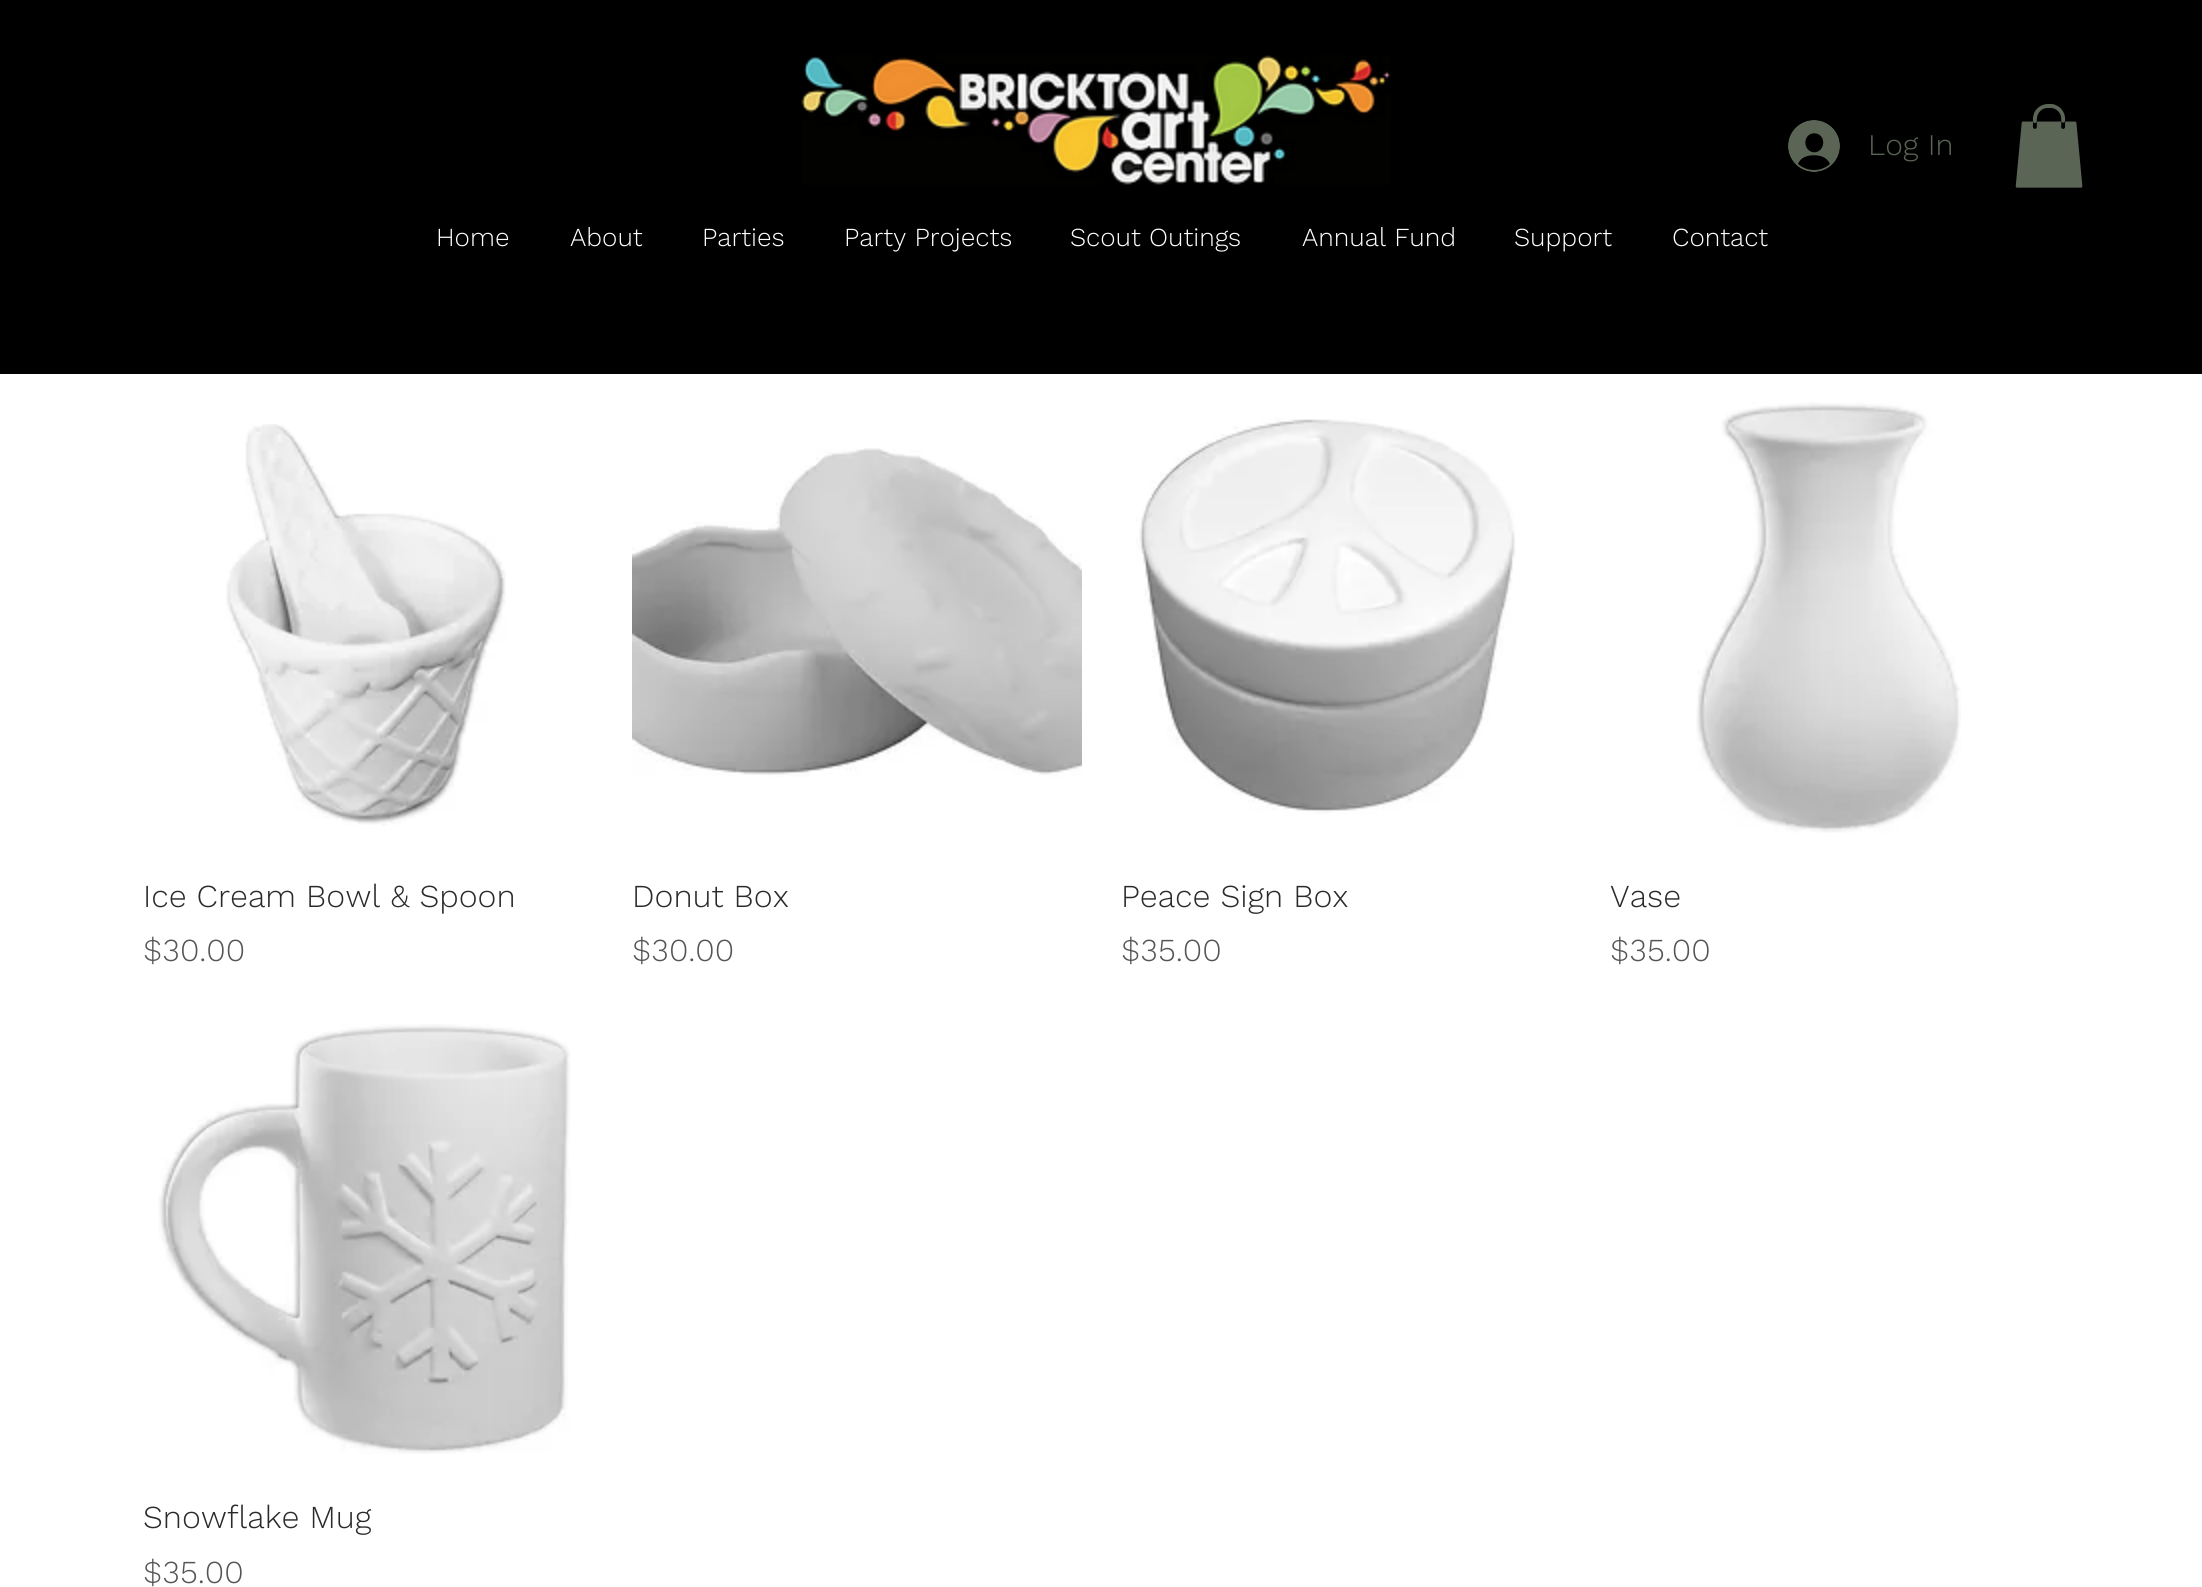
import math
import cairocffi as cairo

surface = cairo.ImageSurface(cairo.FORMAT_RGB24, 2202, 1587)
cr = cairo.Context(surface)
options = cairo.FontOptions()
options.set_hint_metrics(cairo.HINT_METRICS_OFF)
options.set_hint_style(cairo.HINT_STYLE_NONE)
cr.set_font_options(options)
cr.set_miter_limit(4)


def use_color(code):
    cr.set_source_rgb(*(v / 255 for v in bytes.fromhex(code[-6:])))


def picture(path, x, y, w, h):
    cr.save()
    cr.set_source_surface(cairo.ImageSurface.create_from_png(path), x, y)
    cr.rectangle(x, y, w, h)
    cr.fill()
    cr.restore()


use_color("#ffffff")
cr.paint()
use_color("#000000")
cr.rectangle(0, 0, 2202, 374)
cr.fill()
picture("img1.png", 801, 55, 590, 130)
picture("img2.png", 1788, 120, 52, 52)
cr.select_font_face("Work Sans Light")
cr.set_font_size(30)
use_color("#5b6555")
cr.move_to(1868, 155)
cr.show_text("Log In")
picture("img3.png", 2015, 104, 68, 84)
cr.set_font_size(26)
use_color("#ffffff")
cr.move_to(436, 246)
cr.show_text("Home")
cr.move_to(570, 246)
cr.show_text("About")
cr.move_to(702, 246)
cr.show_text("Parties")
cr.move_to(844, 246)
cr.show_text("Party Projects")
cr.move_to(1070, 246)
cr.show_text("Scout Outings")
cr.move_to(1302, 246)
cr.show_text("Annual Fund")
cr.move_to(1514, 246)
cr.show_text("Support")
cr.move_to(1672, 246)
cr.show_text("Contact")
picture("img4.png", 226, 424, 280, 402)
cr.set_font_size(32)
use_color("#2a2a2a")
cr.move_to(143, 907)
cr.show_text("Ice Cream Bowl & Spoon")
use_color("#555555")
cr.move_to(143, 961)
cr.show_text("$30.00")
picture("img5.png", 632, 448, 450, 329)
use_color("#2a2a2a")
cr.move_to(632, 907)
cr.show_text("Donut Box")
use_color("#555555")
cr.move_to(632, 961)
cr.show_text("$30.00")
picture("img6.png", 1136, 418, 380, 396)
use_color("#2a2a2a")
cr.move_to(1121, 907)
cr.show_text("Peace Sign Box")
use_color("#555555")
cr.move_to(1121, 961)
cr.show_text("$35.00")
picture("img7.png", 1696, 402, 265, 431)
use_color("#2a2a2a")
cr.move_to(1610, 907)
cr.show_text("Vase")
use_color("#555555")
cr.move_to(1610, 961)
cr.show_text("$35.00")
picture("img8.png", 158, 1024, 413, 430)
use_color("#2a2a2a")
cr.move_to(143, 1528)
cr.show_text("Snowflake Mug")
use_color("#555555")
cr.move_to(143, 1583)
cr.show_text("$35.00")
surface.write_to_png("result.png")
